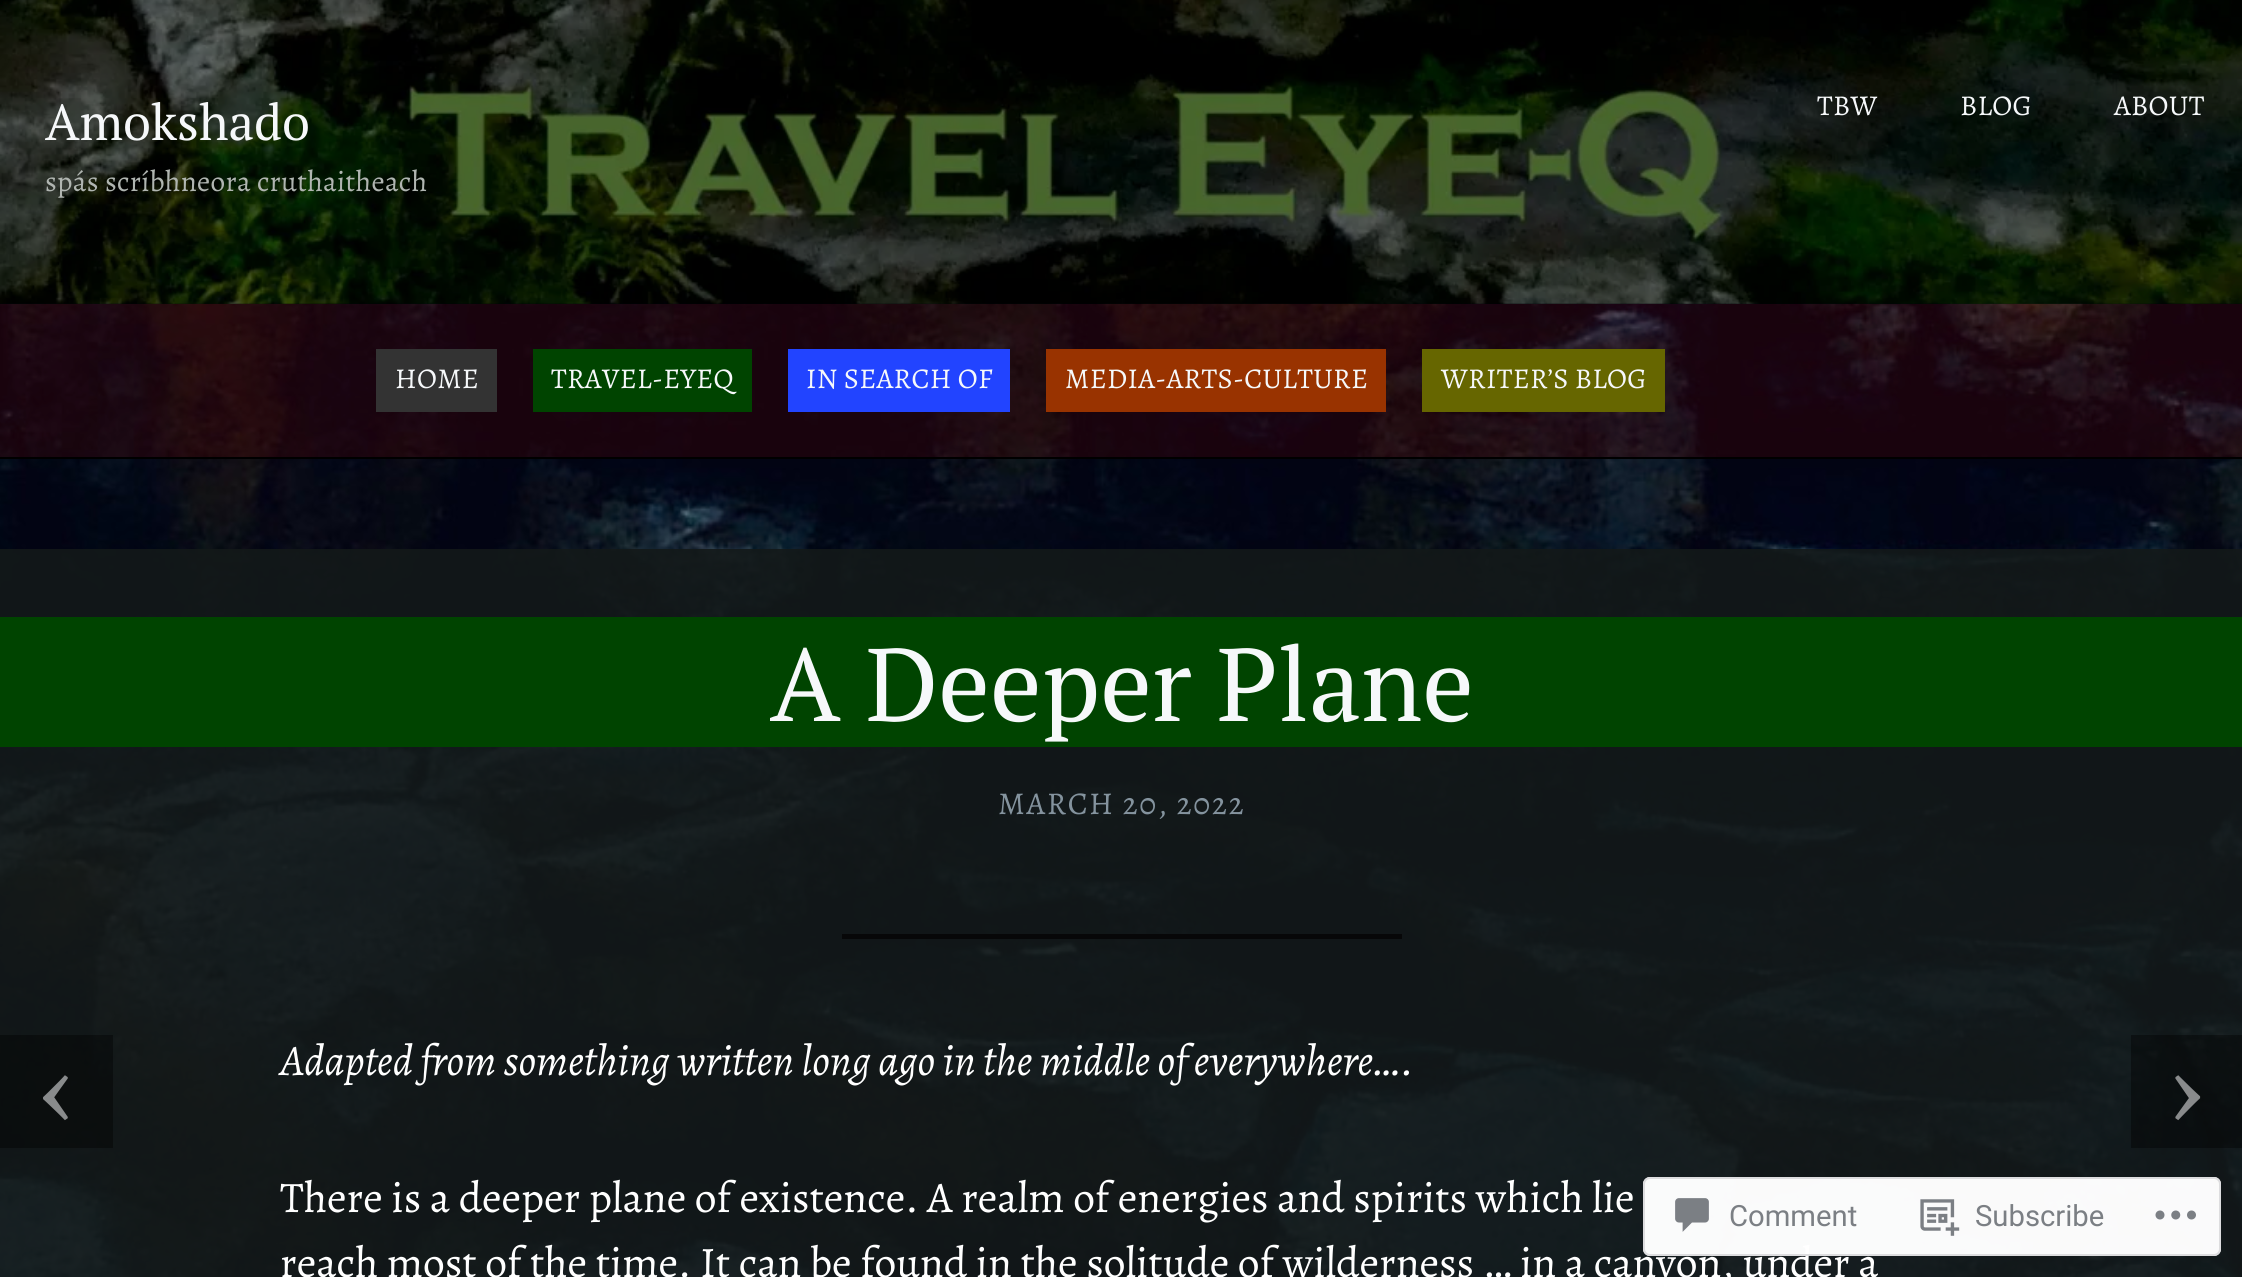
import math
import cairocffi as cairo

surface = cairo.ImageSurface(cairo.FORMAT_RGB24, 2242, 1277)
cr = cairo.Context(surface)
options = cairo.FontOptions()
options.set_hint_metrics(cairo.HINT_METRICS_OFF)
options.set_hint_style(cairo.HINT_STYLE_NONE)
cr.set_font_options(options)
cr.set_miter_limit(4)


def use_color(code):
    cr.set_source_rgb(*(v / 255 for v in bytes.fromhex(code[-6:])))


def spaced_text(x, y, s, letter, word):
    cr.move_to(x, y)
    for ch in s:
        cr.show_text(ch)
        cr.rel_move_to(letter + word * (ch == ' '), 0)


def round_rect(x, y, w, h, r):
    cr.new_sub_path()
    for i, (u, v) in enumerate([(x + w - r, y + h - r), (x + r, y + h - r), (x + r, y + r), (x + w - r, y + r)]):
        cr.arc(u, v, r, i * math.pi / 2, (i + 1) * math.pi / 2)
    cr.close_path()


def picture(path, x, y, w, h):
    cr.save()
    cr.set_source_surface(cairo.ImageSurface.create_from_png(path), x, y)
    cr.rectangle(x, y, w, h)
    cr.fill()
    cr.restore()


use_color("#ffffff")
cr.paint()
picture("img1.png", 0, 303, 2242, 974)
picture("img2.png", 0, 0, 2242, 304)
cr.set_source_rgba(0, 0, 0, 0.5)
cr.rectangle(0, 0, 2242, 304)
cr.fill()
cr.select_font_face("PT Serif")
cr.set_font_size(50.5)
use_color("#f6f8fa")
cr.move_to(45, 140)
cr.show_text("Amokshado")
cr.select_font_face("Alegreya")
cr.set_font_size(29.25)
use_color("#b0b5b1")
spaced_text(45, 191, "spás scríbhneora cruthaitheach", 0.3, 0)
cr.set_font_size(28.75)
use_color("#f6f8fa")
spaced_text(1817, 115, "TBW", 0.3, 0)
spaced_text(1960, 115, "BLOG", 0.3, 0)
spaced_text(2114, 115, "ABOUT", 0.3, 0)
cr.set_source_rgba(0.314, 0, 0, 0.3)
cr.rectangle(0, 304, 2242, 153)
cr.fill()
use_color("#000000")
cr.rectangle(0, 457, 2242, 2)
cr.fill()
use_color("#333333")
cr.rectangle(376, 349, 121, 63)
cr.fill()
use_color("#f6f8fa")
spaced_text(395, 388, "HOME", 0.3, 0)
use_color("#004400")
cr.rectangle(533, 349, 219, 63)
cr.fill()
use_color("#f6f8fa")
spaced_text(551, 388, "TRAVEL-EYEQ", 0.3, 0)
use_color("#2244ff")
cr.rectangle(788, 349, 222, 63)
cr.fill()
use_color("#f6f8fa")
spaced_text(806, 388, "IN SEARCH OF", 0.3, 0)
use_color("#993300")
cr.rectangle(1046, 349, 340, 63)
cr.fill()
use_color("#f6f8fa")
spaced_text(1065, 388, "MEDIA-ARTS-CULTURE", 0.3, 0)
use_color("#666600")
cr.rectangle(1422, 349, 243, 63)
cr.fill()
use_color("#f6f8fa")
spaced_text(1441, 388, "WRITER’S BLOG", 0.3, 0)
cr.set_source_rgba(0.078, 0.098, 0.098, 0.9)
cr.rectangle(0, 549, 2242, 728)
cr.fill()
use_color("#004400")
cr.rectangle(0, 617, 2242, 130)
cr.fill()
cr.select_font_face("PT Serif")
cr.set_font_size(103)
use_color("#f6f8fa")
cr.move_to(770, 721)
cr.show_text("A Deeper Plane")
cr.select_font_face("Alegreya")
cr.set_font_size(31.75)
use_color("#84939e")
spaced_text(998, 814, "MARCH 20, 2022", 1.6, 0)
use_color("#070708")
cr.rectangle(842, 934, 560, 5)
cr.fill()
cr.select_font_face("Alegreya", cairo.FONT_SLANT_ITALIC)
cr.set_font_size(43.55)
use_color("#ffffff")
cr.move_to(280, 1075)
cr.show_text("Adapted from something written long ago in the middle of everywhere….")
cr.select_font_face("Alegreya")
cr.move_to(280, 1212)
cr.show_text("There is a deeper plane of existence. A realm of energies and spirits which lie")
cr.move_to(280, 1277)
cr.show_text("reach most of the time. It can be found in the solitude of wilderness … in a canyon, under a")
cr.set_source_rgba(0, 0, 0, 0.4)
cr.rectangle(0, 1035, 113, 113)
cr.fill()
cr.set_font_size(127)
use_color("#898b8c")
cr.move_to(40, 1126)
cr.show_text("‹")
cr.set_source_rgba(0, 0, 0, 0.4)
cr.rectangle(2131, 1035, 111, 113)
cr.fill()
use_color("#898b8c")
cr.move_to(2170, 1126)
cr.show_text("›")
cr.set_source_rgba(1, 1, 1, 0.98)
round_rect(1643, 1177, 578, 79, 7)
cr.fill()
round_rect(1644, 1178, 576, 77, 6)
cr.set_source_rgba(0.863, 0.863, 0.871, 0.98)
cr.stroke()
picture("img3.png", 1675, 1198, 34, 34)
cr.select_font_face("Roboto")
cr.set_font_size(29.25)
use_color("#7b7f84")
cr.move_to(1729, 1226)
cr.show_text("Comment")
picture("img4.png", 1920, 1199, 40, 37)
cr.move_to(1975, 1226)
cr.show_text("Subscribe")
picture("img5.png", 2155, 1210, 41, 10)
surface.write_to_png("result.png")
